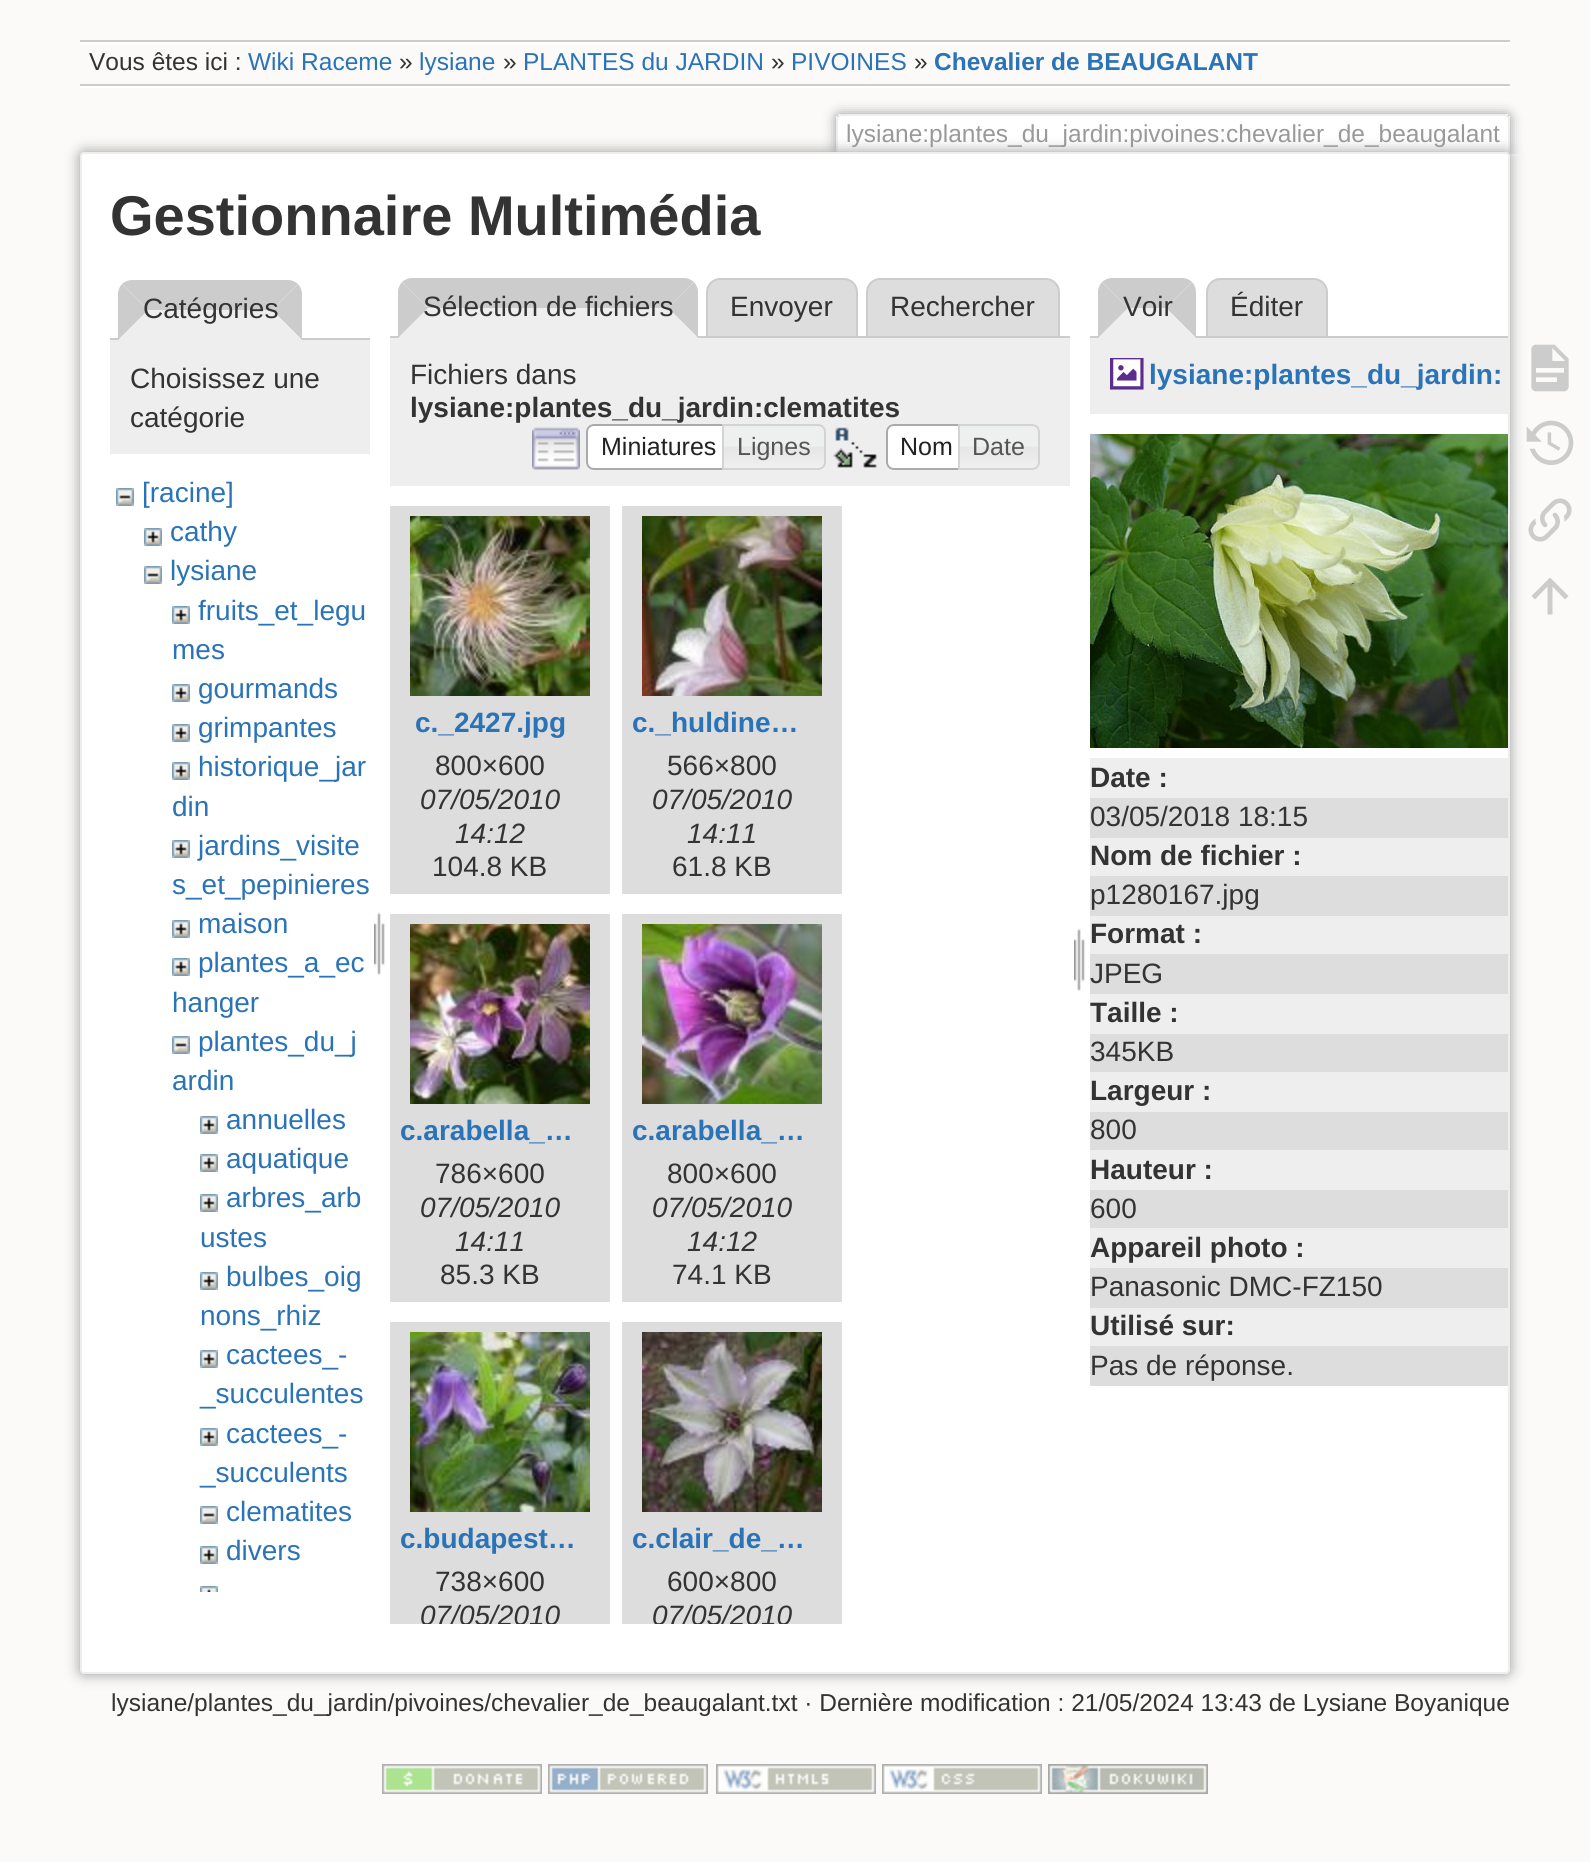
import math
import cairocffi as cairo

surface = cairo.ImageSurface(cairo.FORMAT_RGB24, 1590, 1862)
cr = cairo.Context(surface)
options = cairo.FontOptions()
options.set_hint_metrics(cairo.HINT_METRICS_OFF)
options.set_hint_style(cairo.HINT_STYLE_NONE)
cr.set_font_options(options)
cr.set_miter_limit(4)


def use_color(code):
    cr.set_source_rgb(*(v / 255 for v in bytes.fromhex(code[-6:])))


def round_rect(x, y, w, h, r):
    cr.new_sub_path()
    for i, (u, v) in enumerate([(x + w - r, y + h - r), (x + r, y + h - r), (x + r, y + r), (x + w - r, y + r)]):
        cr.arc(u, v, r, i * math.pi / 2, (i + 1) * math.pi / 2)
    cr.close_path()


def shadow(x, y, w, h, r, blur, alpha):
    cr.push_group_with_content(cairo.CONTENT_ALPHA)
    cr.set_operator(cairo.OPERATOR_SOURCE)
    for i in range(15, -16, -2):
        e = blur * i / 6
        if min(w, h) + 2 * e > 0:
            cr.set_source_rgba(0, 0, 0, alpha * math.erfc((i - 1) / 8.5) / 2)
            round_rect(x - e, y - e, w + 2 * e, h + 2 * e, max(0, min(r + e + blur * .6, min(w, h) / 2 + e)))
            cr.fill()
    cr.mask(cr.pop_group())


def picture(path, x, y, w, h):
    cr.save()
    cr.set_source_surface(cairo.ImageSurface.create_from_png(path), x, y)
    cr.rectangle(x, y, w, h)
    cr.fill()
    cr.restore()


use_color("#fbfaf9")
cr.paint()
use_color("#cccccc")
cr.rectangle(80, 40, 1430, 2)
cr.fill()
use_color("#ffffff")
cr.rectangle(80, 86, 1430, 2)
cr.fill()
cr.rectangle(80, 42, 1430, 2)
cr.fill()
use_color("#cccccc")
cr.rectangle(80, 84, 1430, 2)
cr.fill()
cr.select_font_face("Liberation Sans")
cr.set_font_size(24.5)
use_color("#333333")
cr.move_to(89, 70)
cr.show_text("Vous êtes ici :")
use_color("#2b73b7")
cr.move_to(248, 70)
cr.show_text("Wiki Raceme")
use_color("#333333")
cr.move_to(399, 70)
cr.show_text("»")
use_color("#2b73b7")
cr.move_to(419, 70)
cr.show_text("lysiane")
use_color("#333333")
cr.move_to(503, 70)
cr.show_text("»")
use_color("#2b73b7")
cr.move_to(523, 70)
cr.show_text("PLANTES du JARDIN")
use_color("#333333")
cr.move_to(771, 70)
cr.show_text("»")
use_color("#2b73b7")
cr.move_to(791, 70)
cr.show_text("PIVOINES")
use_color("#333333")
cr.move_to(914, 70)
cr.show_text("»")
cr.select_font_face("Liberation Sans", cairo.FONT_SLANT_NORMAL, cairo.FONT_WEIGHT_BOLD)
use_color("#2b73b7")
cr.move_to(934, 70)
cr.show_text("Chevalier de BEAUGALANT")
cr.save()
cr.rectangle(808, 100, 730, 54)
cr.clip()
use_color("#999999")
shadow(836, 114, 674, 40, 4, 6, 1)
cr.restore()
use_color("#ffffff")
cr.new_path()
cr.move_to(840, 116)
cr.line_to(1506, 116)
cr.curve_to(1507, 116, 1508, 117, 1508, 118)
cr.line_to(1508, 154)
cr.line_to(838, 154)
cr.line_to(838, 118)
cr.curve_to(838, 117, 839, 116, 840, 116)
cr.close_path()
cr.fill()
use_color("#eeeeee")
cr.rectangle(838, 114, 670, 2)
cr.fill()
cr.rectangle(1508, 116, 2, 38)
cr.fill()
cr.rectangle(836, 116, 2, 38)
cr.fill()
cr.select_font_face("Liberation Sans")
use_color("#999999")
cr.move_to(846, 142)
cr.show_text("lysiane:plantes_du_jardin:pivoines:chevalier_de_beaugalant")
use_color("#999999")
shadow(80, 152, 1430, 1522, 4, 7, 1)
use_color("#ffffff")
round_rect(81, 153, 1428, 1520, 3)
cr.fill_preserve()
use_color("#eeeeee")
cr.stroke()
cr.select_font_face("Liberation Sans", cairo.FONT_SLANT_NORMAL, cairo.FONT_WEIGHT_BOLD)
cr.set_font_size(56)
use_color("#333333")
cr.move_to(110, 235)
cr.show_text("Gestionnaire Multimédia")
use_color("#cccccc")
cr.new_path()
cr.move_to(132, 280)
cr.line_to(288, 280)
cr.curve_to(292, 280, 296, 282, 298, 284)
cr.line_to(272, 310)
cr.line_to(148, 310)
cr.line_to(122, 284)
cr.curve_to(124, 282, 128, 280, 132, 280)
cr.close_path()
cr.fill()
cr.rectangle(110, 338, 260, 2)
cr.fill()
cr.new_path()
cr.move_to(298, 284)
cr.line_to(272, 310)
cr.line_to(302, 340)
cr.line_to(302, 294)
cr.curve_to(302, 290, 300, 286, 298, 284)
cr.close_path()
cr.fill()
use_color("#eeeeee")
cr.new_path()
cr.move_to(302, 340)
cr.line_to(272, 310)
cr.line_to(148, 310)
cr.line_to(118, 340)
cr.close_path()
cr.fill()
use_color("#cccccc")
cr.new_path()
cr.move_to(118, 340)
cr.line_to(118, 294)
cr.curve_to(118, 290, 120, 286, 122, 284)
cr.line_to(148, 310)
cr.close_path()
cr.fill()
cr.select_font_face("Liberation Sans")
cr.set_font_size(28)
use_color("#333333")
cr.move_to(143, 318)
cr.show_text("Catégories")
use_color("#eeeeee")
cr.rectangle(110, 340, 260, 114)
cr.fill()
use_color("#333333")
cr.move_to(130, 388)
cr.show_text("Choisissez une")
cr.move_to(130, 427)
cr.show_text("catégorie")
picture("img1.png", 116, 488, 18, 18)
use_color("#2b73b7")
cr.move_to(142, 502)
cr.show_text("[racine]")
picture("img2.png", 144, 528, 18, 18)
cr.move_to(170, 541)
cr.show_text("cathy")
picture("img1.png", 144, 566, 18, 18)
cr.move_to(170, 580)
cr.show_text("lysiane")
picture("img2.png", 172, 606, 18, 18)
cr.move_to(198, 620)
cr.show_text("fruits_et_legu")
cr.move_to(172, 659)
cr.show_text("mes")
picture("img2.png", 172, 684, 18, 18)
cr.move_to(198, 698)
cr.show_text("gourmands")
picture("img2.png", 172, 724, 18, 18)
cr.move_to(198, 737)
cr.show_text("grimpantes")
picture("img2.png", 172, 762, 18, 18)
cr.move_to(198, 776)
cr.show_text("historique_jar")
cr.move_to(172, 816)
cr.show_text("din")
picture("img2.png", 172, 840, 18, 18)
cr.move_to(198, 855)
cr.show_text("jardins_visite")
cr.move_to(172, 894)
cr.show_text("s_et_pepinieres")
picture("img2.png", 172, 920, 18, 18)
cr.move_to(198, 933)
cr.show_text("maison")
picture("img2.png", 172, 958, 18, 18)
cr.move_to(198, 972)
cr.show_text("plantes_a_ec")
cr.move_to(172, 1012)
cr.show_text("hanger")
picture("img1.png", 172, 1036, 18, 18)
cr.move_to(198, 1051)
cr.show_text("plantes_du_j")
cr.move_to(172, 1090)
cr.show_text("ardin")
picture("img2.png", 200, 1116, 18, 18)
cr.move_to(226, 1129)
cr.show_text("annuelles")
picture("img2.png", 200, 1154, 18, 18)
cr.move_to(226, 1168)
cr.show_text("aquatique")
picture("img2.png", 200, 1194, 18, 18)
cr.move_to(226, 1207)
cr.show_text("arbres_arb")
cr.move_to(200, 1247)
cr.show_text("ustes")
picture("img2.png", 200, 1272, 18, 18)
cr.move_to(226, 1286)
cr.show_text("bulbes_oig")
cr.move_to(200, 1325)
cr.show_text("nons_rhiz")
picture("img2.png", 200, 1350, 18, 18)
cr.move_to(226, 1364)
cr.show_text("cactees_-")
cr.move_to(200, 1403)
cr.show_text("_succulentes")
picture("img2.png", 200, 1428, 18, 18)
cr.move_to(226, 1443)
cr.show_text("cactees_-")
cr.move_to(200, 1482)
cr.show_text("_succulents")
picture("img1.png", 200, 1506, 18, 18)
cr.move_to(226, 1521)
cr.show_text("clematites")
picture("img2.png", 200, 1546, 18, 18)
cr.move_to(226, 1560)
cr.show_text("divers")
picture("img3.png", 200, 1586, 18, 6)
picture("img4.png", 374, 912, 11, 63)
use_color("#cccccc")
cr.new_path()
cr.move_to(412, 278)
cr.line_to(684, 278)
cr.curve_to(688, 278, 692, 280, 694, 282)
cr.line_to(668, 308)
cr.line_to(428, 308)
cr.line_to(402, 282)
cr.curve_to(404, 280, 408, 278, 412, 278)
cr.close_path()
cr.fill()
use_color("#dddddd")
cr.new_path()
cr.move_to(720, 279)
cr.line_to(844, 279)
cr.curve_to(851, 279, 857, 285, 857, 292)
cr.line_to(857, 337)
cr.line_to(707, 337)
cr.line_to(707, 292)
cr.curve_to(707, 285, 713, 279, 720, 279)
cr.close_path()
cr.fill_preserve()
use_color("#cccccc")
cr.stroke()
use_color("#dddddd")
cr.new_path()
cr.move_to(880, 279)
cr.line_to(1046, 279)
cr.curve_to(1053, 279, 1059, 285, 1059, 292)
cr.line_to(1059, 337)
cr.line_to(867, 337)
cr.line_to(867, 292)
cr.curve_to(867, 285, 873, 279, 880, 279)
cr.close_path()
cr.fill_preserve()
use_color("#cccccc")
cr.stroke()
cr.rectangle(390, 336, 680, 2)
cr.fill()
cr.new_path()
cr.move_to(694, 282)
cr.line_to(668, 308)
cr.line_to(698, 338)
cr.line_to(698, 292)
cr.curve_to(698, 288, 696, 284, 694, 282)
cr.close_path()
cr.fill()
use_color("#eeeeee")
cr.new_path()
cr.move_to(698, 338)
cr.line_to(668, 308)
cr.line_to(428, 308)
cr.line_to(398, 338)
cr.close_path()
cr.fill()
use_color("#cccccc")
cr.new_path()
cr.move_to(398, 338)
cr.line_to(398, 292)
cr.curve_to(398, 288, 400, 284, 402, 282)
cr.line_to(428, 308)
cr.close_path()
cr.fill()
use_color("#333333")
cr.move_to(423, 316)
cr.show_text("Sélection de fichiers")
cr.move_to(730, 316)
cr.show_text("Envoyer")
cr.move_to(890, 316)
cr.show_text("Rechercher")
use_color("#eeeeee")
cr.rectangle(390, 338, 680, 148)
cr.fill()
use_color("#333333")
cr.move_to(410, 384)
cr.show_text("Fichiers dans")
cr.select_font_face("Liberation Sans", cairo.FONT_SLANT_NORMAL, cairo.FONT_WEIGHT_BOLD)
cr.move_to(410, 417)
cr.show_text("lysiane:plantes_du_jardin:clematites")
picture("img5.png", 532, 427, 48, 43)
use_color("#ffffff")
cr.new_path()
cr.move_to(594, 424)
cr.line_to(732, 424)
cr.line_to(732, 470)
cr.line_to(594, 470)
cr.curve_to(589.5, 470, 586, 466.5, 586, 462)
cr.line_to(586, 432)
cr.curve_to(586, 427.5, 589.5, 424, 594, 424)
cr.close_path()
cr.fill()
picture("img6.png", 586, 424, 6, 46)
cr.new_path()
cr.move_to(594, 425)
cr.line_to(731, 425)
cr.line_to(731, 469)
cr.line_to(594, 469)
cr.curve_to(590, 469, 587, 466, 587, 462)
cr.line_to(587, 432)
cr.curve_to(587, 428, 590, 425, 594, 425)
cr.close_path()
use_color("#aaaaaa")
cr.stroke()
cr.select_font_face("Liberation Sans")
cr.set_font_size(25)
use_color("#212121")
cr.move_to(601, 455)
cr.show_text("Miniatures")
picture("img7.png", 724, 424, 102, 46)
cr.new_path()
cr.move_to(723, 425)
cr.line_to(818, 425)
cr.curve_to(822, 425, 825, 428, 825, 432)
cr.line_to(825, 462)
cr.curve_to(825, 466, 822, 469, 818, 469)
cr.line_to(723, 469)
cr.close_path()
use_color("#d3d3d3")
cr.stroke()
use_color("#555555")
cr.move_to(737, 455)
cr.show_text("Lignes")
picture("img8.png", 833, 427, 44, 41)
use_color("#ffffff")
cr.new_path()
cr.move_to(894, 424)
cr.line_to(968, 424)
cr.line_to(968, 470)
cr.line_to(894, 470)
cr.curve_to(889.5, 470, 886, 466.5, 886, 462)
cr.line_to(886, 432)
cr.curve_to(886, 427.5, 889.5, 424, 894, 424)
cr.close_path()
cr.fill()
picture("img6.png", 886, 424, 6, 46)
cr.new_path()
cr.move_to(894, 425)
cr.line_to(967, 425)
cr.line_to(967, 469)
cr.line_to(894, 469)
cr.curve_to(890, 469, 887, 466, 887, 462)
cr.line_to(887, 432)
cr.curve_to(887, 428, 890, 425, 894, 425)
cr.close_path()
use_color("#aaaaaa")
cr.stroke()
use_color("#212121")
cr.move_to(900, 455)
cr.show_text("Nom")
picture("img9.png", 960, 424, 80, 46)
cr.new_path()
cr.move_to(959, 425)
cr.line_to(1032, 425)
cr.curve_to(1036, 425, 1039, 428, 1039, 432)
cr.line_to(1039, 462)
cr.curve_to(1039, 466, 1036, 469, 1032, 469)
cr.line_to(959, 469)
cr.close_path()
use_color("#d3d3d3")
cr.stroke()
use_color("#555555")
cr.move_to(972, 455)
cr.show_text("Date")
use_color("#dddddd")
cr.rectangle(390, 506, 220, 388)
cr.fill()
picture("img10.png", 410, 516, 180, 180)
cr.select_font_face("Liberation Sans", cairo.FONT_SLANT_NORMAL, cairo.FONT_WEIGHT_BOLD)
cr.set_font_size(28)
use_color("#2b73b7")
cr.move_to(415, 732)
cr.show_text("c._2427.jpg")
cr.select_font_face("Liberation Sans")
use_color("#333333")
cr.move_to(435, 775)
cr.show_text("800×600")
cr.select_font_face("Liberation Sans", cairo.FONT_SLANT_ITALIC)
cr.move_to(420, 809)
cr.show_text("07/05/2010")
cr.move_to(455, 843)
cr.show_text("14:12")
cr.select_font_face("Liberation Sans")
cr.move_to(432, 876)
cr.show_text("104.8 KB")
use_color("#dddddd")
cr.rectangle(622, 506, 220, 388)
cr.fill()
picture("img11.png", 642, 516, 180, 180)
cr.select_font_face("Liberation Sans", cairo.FONT_SLANT_NORMAL, cairo.FONT_WEIGHT_BOLD)
use_color("#2b73b7")
cr.move_to(632, 732)
cr.show_text("c._huldine…")
cr.select_font_face("Liberation Sans")
use_color("#333333")
cr.move_to(667, 775)
cr.show_text("566×800")
cr.select_font_face("Liberation Sans", cairo.FONT_SLANT_ITALIC)
cr.move_to(652, 809)
cr.show_text("07/05/2010")
cr.move_to(687, 843)
cr.show_text("14:11")
cr.select_font_face("Liberation Sans")
cr.move_to(672, 876)
cr.show_text("61.8 KB")
use_color("#dddddd")
cr.rectangle(390, 914, 220, 388)
cr.fill()
picture("img12.png", 410, 924, 180, 180)
cr.select_font_face("Liberation Sans", cairo.FONT_SLANT_NORMAL, cairo.FONT_WEIGHT_BOLD)
use_color("#2b73b7")
cr.move_to(400, 1140)
cr.show_text("c.arabella_…")
cr.select_font_face("Liberation Sans")
use_color("#333333")
cr.move_to(435, 1183)
cr.show_text("786×600")
cr.select_font_face("Liberation Sans", cairo.FONT_SLANT_ITALIC)
cr.move_to(420, 1217)
cr.show_text("07/05/2010")
cr.move_to(455, 1251)
cr.show_text("14:11")
cr.select_font_face("Liberation Sans")
cr.move_to(440, 1284)
cr.show_text("85.3 KB")
use_color("#dddddd")
cr.rectangle(622, 914, 220, 388)
cr.fill()
picture("img13.png", 642, 924, 180, 180)
cr.select_font_face("Liberation Sans", cairo.FONT_SLANT_NORMAL, cairo.FONT_WEIGHT_BOLD)
use_color("#2b73b7")
cr.move_to(632, 1140)
cr.show_text("c.arabella_…")
cr.select_font_face("Liberation Sans")
use_color("#333333")
cr.move_to(667, 1183)
cr.show_text("800×600")
cr.select_font_face("Liberation Sans", cairo.FONT_SLANT_ITALIC)
cr.move_to(652, 1217)
cr.show_text("07/05/2010")
cr.move_to(687, 1251)
cr.show_text("14:12")
cr.select_font_face("Liberation Sans")
cr.move_to(672, 1284)
cr.show_text("74.1 KB")
use_color("#dddddd")
cr.rectangle(390, 1322, 220, 302)
cr.fill()
picture("img14.png", 410, 1332, 180, 180)
cr.select_font_face("Liberation Sans", cairo.FONT_SLANT_NORMAL, cairo.FONT_WEIGHT_BOLD)
use_color("#2b73b7")
cr.move_to(400, 1548)
cr.show_text("c.budapest…")
cr.select_font_face("Liberation Sans")
use_color("#333333")
cr.move_to(435, 1591)
cr.show_text("738×600")
cr.save()
cr.rectangle(400, 1600, 180, 24)
cr.clip()
cr.select_font_face("Liberation Sans", cairo.FONT_SLANT_ITALIC)
cr.move_to(420, 1625)
cr.show_text("07/05/2010")
cr.restore()
use_color("#dddddd")
cr.rectangle(622, 1322, 220, 302)
cr.fill()
picture("img15.png", 642, 1332, 180, 180)
cr.select_font_face("Liberation Sans", cairo.FONT_SLANT_NORMAL, cairo.FONT_WEIGHT_BOLD)
use_color("#2b73b7")
cr.move_to(632, 1548)
cr.show_text("c.clair_de_…")
cr.select_font_face("Liberation Sans")
use_color("#333333")
cr.move_to(667, 1591)
cr.show_text("600×800")
cr.save()
cr.rectangle(632, 1600, 180, 24)
cr.clip()
cr.select_font_face("Liberation Sans", cairo.FONT_SLANT_ITALIC)
cr.move_to(652, 1625)
cr.show_text("07/05/2010")
cr.restore()
picture("img4.png", 1074, 928, 11, 63)
use_color("#cccccc")
cr.new_path()
cr.move_to(1112, 278)
cr.line_to(1182, 278)
cr.curve_to(1186, 278, 1190, 280, 1192, 282)
cr.line_to(1166, 308)
cr.line_to(1128, 308)
cr.line_to(1102, 282)
cr.curve_to(1104, 280, 1108, 278, 1112, 278)
cr.close_path()
cr.fill()
use_color("#dddddd")
cr.new_path()
cr.move_to(1220, 279)
cr.line_to(1314, 279)
cr.curve_to(1321, 279, 1327, 285, 1327, 292)
cr.line_to(1327, 337)
cr.line_to(1207, 337)
cr.line_to(1207, 292)
cr.curve_to(1207, 285, 1213, 279, 1220, 279)
cr.close_path()
cr.fill_preserve()
use_color("#cccccc")
cr.stroke()
cr.rectangle(1090, 336, 418, 2)
cr.fill()
cr.new_path()
cr.move_to(1192, 282)
cr.line_to(1166, 308)
cr.line_to(1196, 338)
cr.line_to(1196, 292)
cr.curve_to(1196, 288, 1194, 284, 1192, 282)
cr.close_path()
cr.fill()
use_color("#eeeeee")
cr.new_path()
cr.move_to(1196, 338)
cr.line_to(1166, 308)
cr.line_to(1128, 308)
cr.line_to(1098, 338)
cr.close_path()
cr.fill()
use_color("#cccccc")
cr.new_path()
cr.move_to(1098, 338)
cr.line_to(1098, 292)
cr.curve_to(1098, 288, 1100, 284, 1102, 282)
cr.line_to(1128, 308)
cr.close_path()
cr.fill()
use_color("#333333")
cr.move_to(1123, 316)
cr.show_text("Voir")
cr.move_to(1230, 316)
cr.show_text("Éditer")
use_color("#eeeeee")
cr.rectangle(1090, 338, 418, 76)
cr.fill()
picture("img16.png", 1110, 358, 34, 32)
cr.select_font_face("Liberation Sans", cairo.FONT_SLANT_NORMAL, cairo.FONT_WEIGHT_BOLD)
use_color("#2b73b7")
cr.move_to(1149, 384)
cr.show_text("lysiane:plantes_du_jardin:")
picture("img17.png", 1090, 434, 418, 314)
use_color("#eeeeee")
cr.rectangle(1090, 758, 418, 40)
cr.fill()
use_color("#333333")
cr.move_to(1090, 787)
cr.show_text("Date :")
use_color("#dddddd")
cr.rectangle(1090, 798, 418, 40)
cr.fill()
cr.select_font_face("Liberation Sans")
use_color("#333333")
cr.move_to(1090, 826)
cr.show_text("03/05/2018 18:15")
use_color("#eeeeee")
cr.rectangle(1090, 838, 418, 38)
cr.fill()
cr.select_font_face("Liberation Sans", cairo.FONT_SLANT_NORMAL, cairo.FONT_WEIGHT_BOLD)
use_color("#333333")
cr.move_to(1090, 865)
cr.show_text("Nom de fichier :")
use_color("#dddddd")
cr.rectangle(1090, 876, 418, 40)
cr.fill()
cr.select_font_face("Liberation Sans")
use_color("#333333")
cr.move_to(1090, 904)
cr.show_text("p1280167.jpg")
use_color("#eeeeee")
cr.rectangle(1090, 916, 418, 38)
cr.fill()
cr.select_font_face("Liberation Sans", cairo.FONT_SLANT_NORMAL, cairo.FONT_WEIGHT_BOLD)
use_color("#333333")
cr.move_to(1090, 943)
cr.show_text("Format :")
use_color("#dddddd")
cr.rectangle(1090, 954, 418, 40)
cr.fill()
cr.select_font_face("Liberation Sans")
use_color("#333333")
cr.move_to(1090, 983)
cr.show_text("JPEG")
use_color("#eeeeee")
cr.rectangle(1090, 994, 418, 40)
cr.fill()
cr.select_font_face("Liberation Sans", cairo.FONT_SLANT_NORMAL, cairo.FONT_WEIGHT_BOLD)
use_color("#333333")
cr.move_to(1090, 1022)
cr.show_text("Taille :")
use_color("#dddddd")
cr.rectangle(1090, 1034, 418, 38)
cr.fill()
cr.select_font_face("Liberation Sans")
use_color("#333333")
cr.move_to(1090, 1061)
cr.show_text("345KB")
use_color("#eeeeee")
cr.rectangle(1090, 1072, 418, 40)
cr.fill()
cr.select_font_face("Liberation Sans", cairo.FONT_SLANT_NORMAL, cairo.FONT_WEIGHT_BOLD)
use_color("#333333")
cr.move_to(1090, 1100)
cr.show_text("Largeur :")
use_color("#dddddd")
cr.rectangle(1090, 1112, 418, 38)
cr.fill()
cr.select_font_face("Liberation Sans")
use_color("#333333")
cr.move_to(1090, 1139)
cr.show_text("800")
use_color("#eeeeee")
cr.rectangle(1090, 1150, 418, 40)
cr.fill()
cr.select_font_face("Liberation Sans", cairo.FONT_SLANT_NORMAL, cairo.FONT_WEIGHT_BOLD)
use_color("#333333")
cr.move_to(1090, 1179)
cr.show_text("Hauteur :")
use_color("#dddddd")
cr.rectangle(1090, 1190, 418, 38)
cr.fill()
cr.select_font_face("Liberation Sans")
use_color("#333333")
cr.move_to(1090, 1218)
cr.show_text("600")
use_color("#eeeeee")
cr.rectangle(1090, 1228, 418, 40)
cr.fill()
cr.select_font_face("Liberation Sans", cairo.FONT_SLANT_NORMAL, cairo.FONT_WEIGHT_BOLD)
use_color("#333333")
cr.move_to(1090, 1257)
cr.show_text("Appareil photo :")
use_color("#dddddd")
cr.rectangle(1090, 1268, 418, 40)
cr.fill()
cr.select_font_face("Liberation Sans")
use_color("#333333")
cr.move_to(1090, 1296)
cr.show_text("Panasonic DMC-FZ150")
use_color("#eeeeee")
cr.rectangle(1090, 1308, 418, 38)
cr.fill()
cr.select_font_face("Liberation Sans", cairo.FONT_SLANT_NORMAL, cairo.FONT_WEIGHT_BOLD)
use_color("#333333")
cr.move_to(1090, 1335)
cr.show_text("Utilisé sur:")
use_color("#dddddd")
cr.rectangle(1090, 1346, 418, 40)
cr.fill()
cr.select_font_face("Liberation Sans")
use_color("#333333")
cr.move_to(1090, 1375)
cr.show_text("Pas de réponse.")
cr.set_font_size(24.5)
cr.move_to(111, 1711)
cr.show_text("lysiane/plantes_du_jardin/pivoines/chevalier_de_beaugalant.txt · Dernière modification : 21/05/2024 13:43 de Lysiane Boyanique")
picture("img18.png", 1531, 344, 38, 48)
picture("img19.png", 1526, 420, 48, 45)
picture("img20.png", 1528, 498, 44, 44)
use_color("#cccccc")
cr.new_path()
cr.move_to(1552.5, 614.5)
cr.line_to(1547.5, 614.5)
cr.line_to(1547.5, 586.5)
cr.line_to(1535, 599.5)
cr.line_to(1531.5, 596)
cr.line_to(1550, 577.5)
cr.line_to(1568.5, 596)
cr.line_to(1565, 599.5)
cr.line_to(1552.5, 586.5)
cr.close_path()
cr.fill()
picture("img21.png", 382, 1764, 160, 30)
picture("img22.png", 548, 1764, 160, 30)
picture("img23.png", 716, 1764, 160, 30)
picture("img24.png", 882, 1764, 160, 30)
picture("img25.png", 1048, 1764, 160, 30)
surface.write_to_png("result.png")
